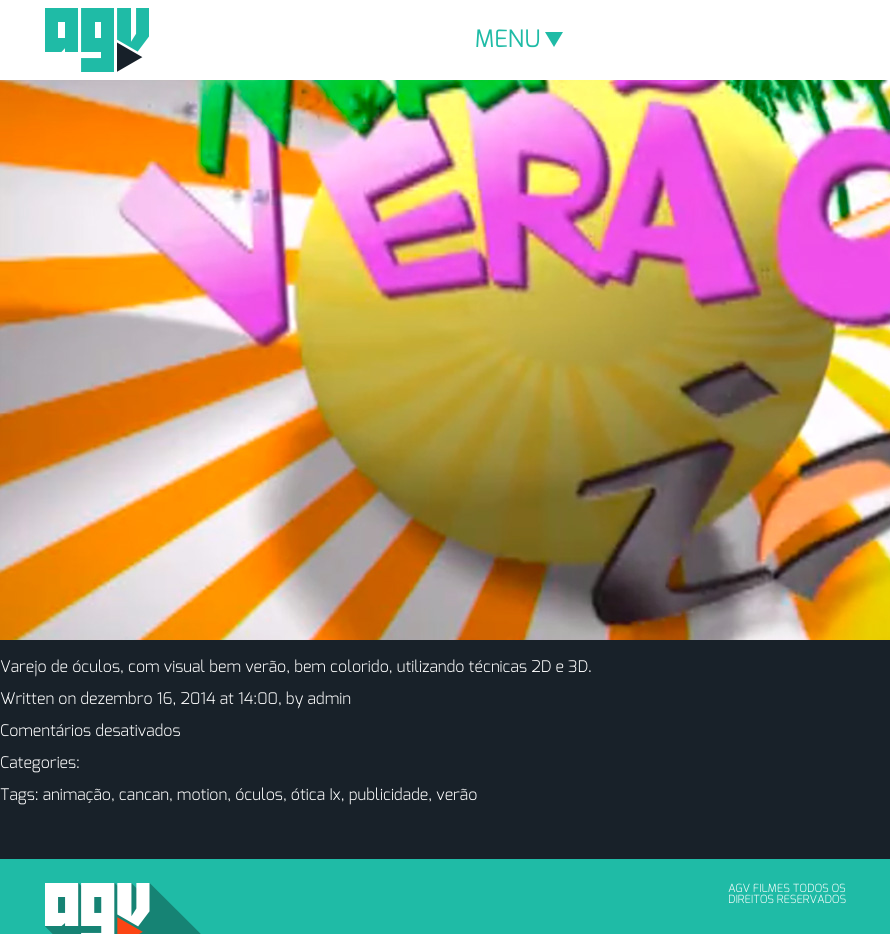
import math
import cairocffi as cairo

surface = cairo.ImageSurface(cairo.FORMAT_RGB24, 890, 934)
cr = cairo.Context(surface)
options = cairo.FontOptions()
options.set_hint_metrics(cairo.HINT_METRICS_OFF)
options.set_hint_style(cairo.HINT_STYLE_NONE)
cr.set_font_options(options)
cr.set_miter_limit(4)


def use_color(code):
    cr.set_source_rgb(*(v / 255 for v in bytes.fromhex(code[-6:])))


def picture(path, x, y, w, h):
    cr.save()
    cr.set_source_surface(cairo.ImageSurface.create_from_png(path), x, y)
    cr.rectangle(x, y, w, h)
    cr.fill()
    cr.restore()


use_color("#182129")
cr.paint()
use_color("#ffffff")
cr.rectangle(0, 0, 890, 80)
cr.fill()
use_color("#1fbba6")
cr.rectangle(45, 8, 104, 64)
cr.fill()
picture("img1.png", 45, 8, 104, 64)
cr.select_font_face("Exo")
cr.set_font_size(24)
cr.move_to(475, 47)
cr.show_text("MENU")
cr.new_path()
cr.move_to(545, 32)
cr.line_to(563, 32)
cr.line_to(554, 47)
cr.close_path()
cr.fill()
picture("img2.png", 0, 80, 890, 560)
cr.select_font_face("Exo Light")
cr.set_font_size(16)
use_color("#ffffff")
cr.move_to(0, 672)
cr.show_text("Varejo de óculos, com visual bem verão, bem colorido, utilizando técnicas 2D e 3D.")
cr.move_to(0, 704)
cr.show_text("Written on dezembro 16, 2014 at 14:00, by admin")
cr.move_to(0, 736)
cr.show_text("Comentários desativados")
cr.move_to(0, 768)
cr.show_text("Categories:")
cr.move_to(0, 800)
cr.show_text("Tags: animação, cancan, motion, óculos, ótica Ix, publicidade, verão")
use_color("#1fbba6")
cr.rectangle(0, 859, 890, 75)
cr.fill()
picture("img3.png", 45, 883, 156, 51)
cr.set_font_size(11.25)
use_color("#ffffff")
cr.move_to(728, 892)
cr.show_text("AGV FILMES TODOS OS")
cr.move_to(728, 903)
cr.show_text("DIREITOS RESERVADOS")
surface.write_to_png("result.png")
